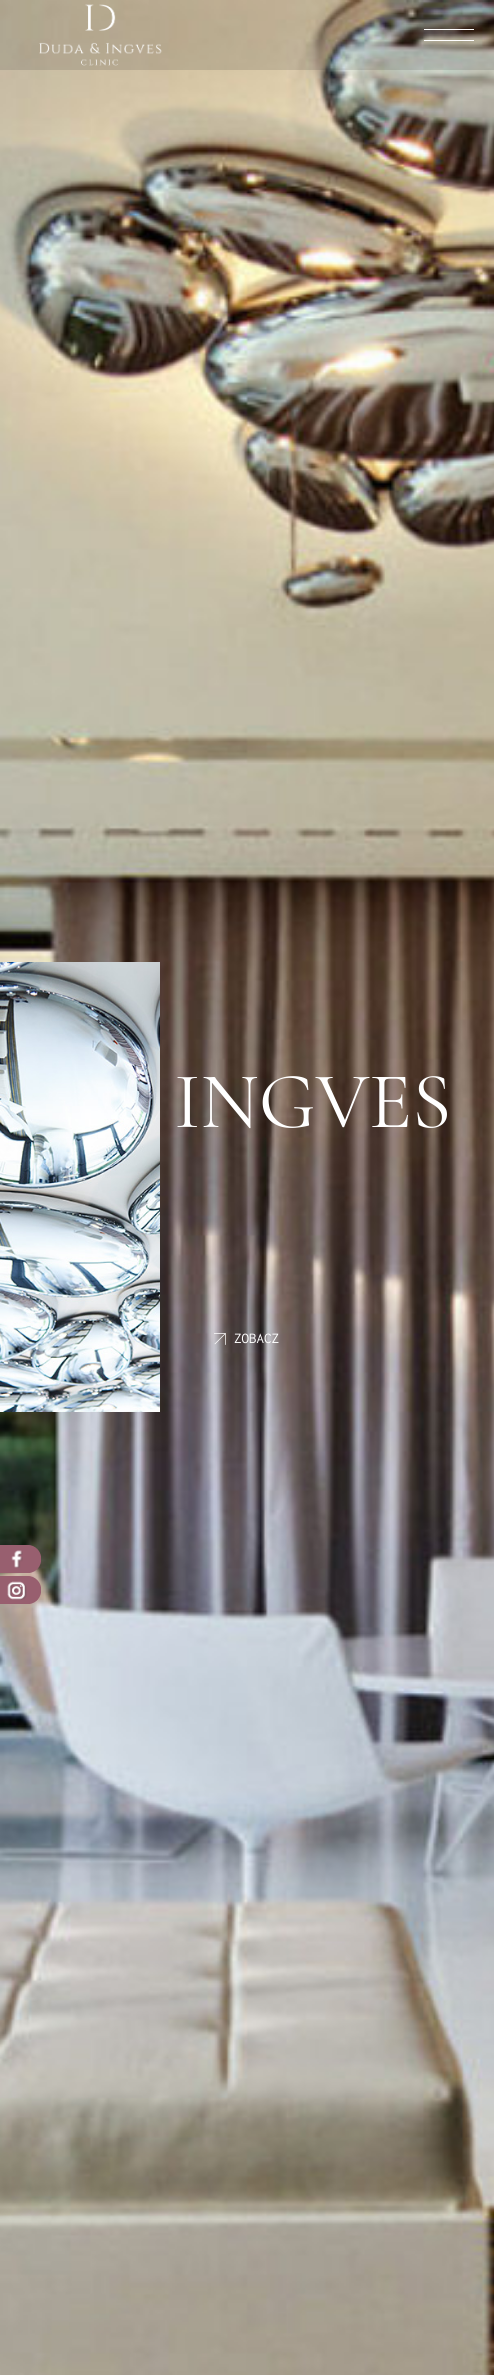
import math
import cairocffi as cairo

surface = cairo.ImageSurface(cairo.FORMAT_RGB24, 494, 2375)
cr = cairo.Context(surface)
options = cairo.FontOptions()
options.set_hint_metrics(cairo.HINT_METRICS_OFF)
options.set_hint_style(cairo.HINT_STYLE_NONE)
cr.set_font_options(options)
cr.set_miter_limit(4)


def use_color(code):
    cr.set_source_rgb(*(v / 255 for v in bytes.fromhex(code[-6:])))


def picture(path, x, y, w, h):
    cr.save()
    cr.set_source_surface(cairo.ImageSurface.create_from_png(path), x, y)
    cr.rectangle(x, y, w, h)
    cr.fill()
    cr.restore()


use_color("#ffffff")
cr.paint()
picture("img2.png", 0, 0, 494, 2375)
cr.set_source_rgba(0.157, 0.157, 0.157, 0.15)
cr.rectangle(0, 0, 494, 70)
cr.fill()
picture("img1.png", 39, 4, 123, 62)
use_color("#ffffff")
cr.rectangle(424, 29, 50, 1)
cr.fill()
cr.rectangle(424, 40, 50, 1)
cr.fill()
picture("img3.png", 0, 962, 160, 450)
cr.select_font_face("Cormorant Light")
cr.set_font_size(80)
cr.move_to(174, 1127)
cr.show_text("INGVES")
picture("img4.png", 214, 1333, 12, 12)
cr.select_font_face("Inconsolata")
cr.set_font_size(15)
cr.move_to(234, 1343)
cr.show_text("ZOBACZ")
picture("img5.png", 0, 1545, 41, 28)
picture("img6.png", 11, 1550, 12, 18)
picture("img7.png", 0, 1576, 41, 28)
picture("img8.png", 7, 1581, 20, 19)
surface.write_to_png("result.png")
